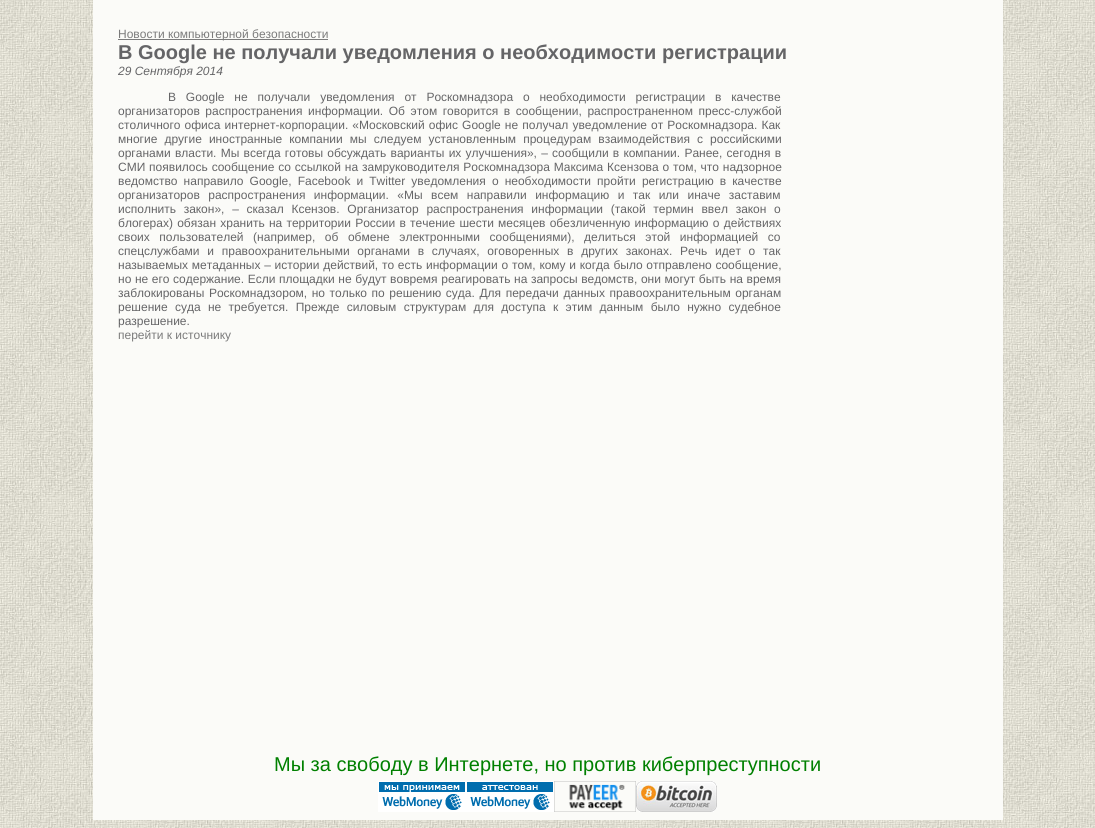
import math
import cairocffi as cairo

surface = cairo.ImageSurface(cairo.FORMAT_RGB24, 1095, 828)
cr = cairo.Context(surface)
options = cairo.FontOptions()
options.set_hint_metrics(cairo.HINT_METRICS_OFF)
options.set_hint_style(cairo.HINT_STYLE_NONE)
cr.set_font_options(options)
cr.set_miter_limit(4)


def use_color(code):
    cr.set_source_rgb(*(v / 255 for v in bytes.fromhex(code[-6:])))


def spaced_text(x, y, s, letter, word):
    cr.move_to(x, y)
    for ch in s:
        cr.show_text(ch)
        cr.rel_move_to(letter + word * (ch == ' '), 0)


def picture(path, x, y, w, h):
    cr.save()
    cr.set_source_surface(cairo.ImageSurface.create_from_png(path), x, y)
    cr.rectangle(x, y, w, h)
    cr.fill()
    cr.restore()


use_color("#ffffff")
cr.paint()
picture("img1.png", 0, 0, 1095, 828)
use_color("#fbfbf8")
cr.rectangle(93, 0, 910, 820)
cr.fill()
use_color("#7b7b7b")
cr.rectangle(118, 39, 210, 1)
cr.fill()
cr.select_font_face("Liberation Sans")
cr.set_font_size(12)
cr.move_to(118, 38)
cr.show_text("Новости компьютерной безопасности")
cr.select_font_face("Liberation Sans", cairo.FONT_SLANT_NORMAL, cairo.FONT_WEIGHT_BOLD)
cr.set_font_size(20)
use_color("#656567")
cr.move_to(118, 59)
cr.show_text("В Google не получали уведомления о необходимости регистрации")
cr.select_font_face("Liberation Sans", cairo.FONT_SLANT_ITALIC)
cr.set_font_size(12)
cr.move_to(118, 75)
cr.show_text("29 Сентября 2014")
cr.select_font_face("Liberation Sans")
spaced_text(168, 101, "В Google не получали уведомления от Роскомнадзора о необходимости регистрации в качестве", 0, 6.5)
spaced_text(118, 115, "организаторов распространения информации. Об этом говорится в сообщении, распространенном пресс-службой", 0, 2.25)
spaced_text(118, 129, "столичного офиса интернет-корпорации. «Московский офис Google не получал уведомление от Роскомнадзора. Как", 0, 0.75)
spaced_text(118, 143, "многие другие иностранные компании мы следуем установленным процедурам взаимодействия с российскими", 0, 3.75)
spaced_text(118, 157, "органами власти. Мы всегда готовы обсуждать варианты их улучшения», – сообщили в компании. Ранее, сегодня в", 0, 0.9)
spaced_text(118, 171, "СМИ появилось сообщение со ссылкой на замруководителя Роскомнадзора Максима Ксензова о том, что надзорное", 0, 0.5)
spaced_text(118, 185, "ведомство направило Google, Facebook и Twitter уведомления о необходимости пройти регистрацию в качестве", 0, 2.75)
spaced_text(118, 199, "организаторов распространения информации. «Мы всем направили информацию и так или иначе заставим", 0, 5.1)
spaced_text(118, 213, "исполнить закон», – сказал Ксензов. Организатор распространения информации (такой термин ввел закон о", 0, 4.4)
spaced_text(118, 227, "блогерах) обязан хранить на территории России в течение шести месяцев обезличенную информацию о действиях", 0, 0.9)
spaced_text(118, 241, "своих пользователей (например, об обмене электронными сообщениями), делиться этой информацией со", 0, 6.25)
spaced_text(118, 255, "спецслужбами и правоохранительными органами в случаях, оговоренных в других законах. Речь идет о так", 0, 4.4)
spaced_text(118, 269, "называемых метаданных – истории действий, то есть информации о том, кому и когда было отправлено сообщение,", 0, 0.4)
spaced_text(118, 283, "но не его содержание. Если площадки не будут вовремя реагировать на запросы ведомств, они могут быть на время", 0, 0.25)
spaced_text(118, 297, "заблокированы Роскомнадзором, но только по решению суда. Для передачи данных правоохранительным органам", 0, 1.25)
spaced_text(118, 311, "решение суда не требуется. Прежде силовым структурам для доступа к этим данным было нужно судебное", 0, 4)
cr.move_to(118, 325)
cr.show_text("разрешение.")
use_color("#7b7b7b")
cr.move_to(118, 339)
cr.show_text("перейти к источнику")
cr.set_font_size(20)
use_color("#008000")
cr.move_to(274, 771)
cr.show_text("Мы за свободу в Интернете, но против киберпреступности")
picture("img2.png", 378, 781, 88, 31)
picture("img3.png", 466, 781, 88, 31)
picture("img4.png", 554, 781, 82, 31)
picture("img5.png", 636, 781, 81, 31)
surface.write_to_png("result.png")
